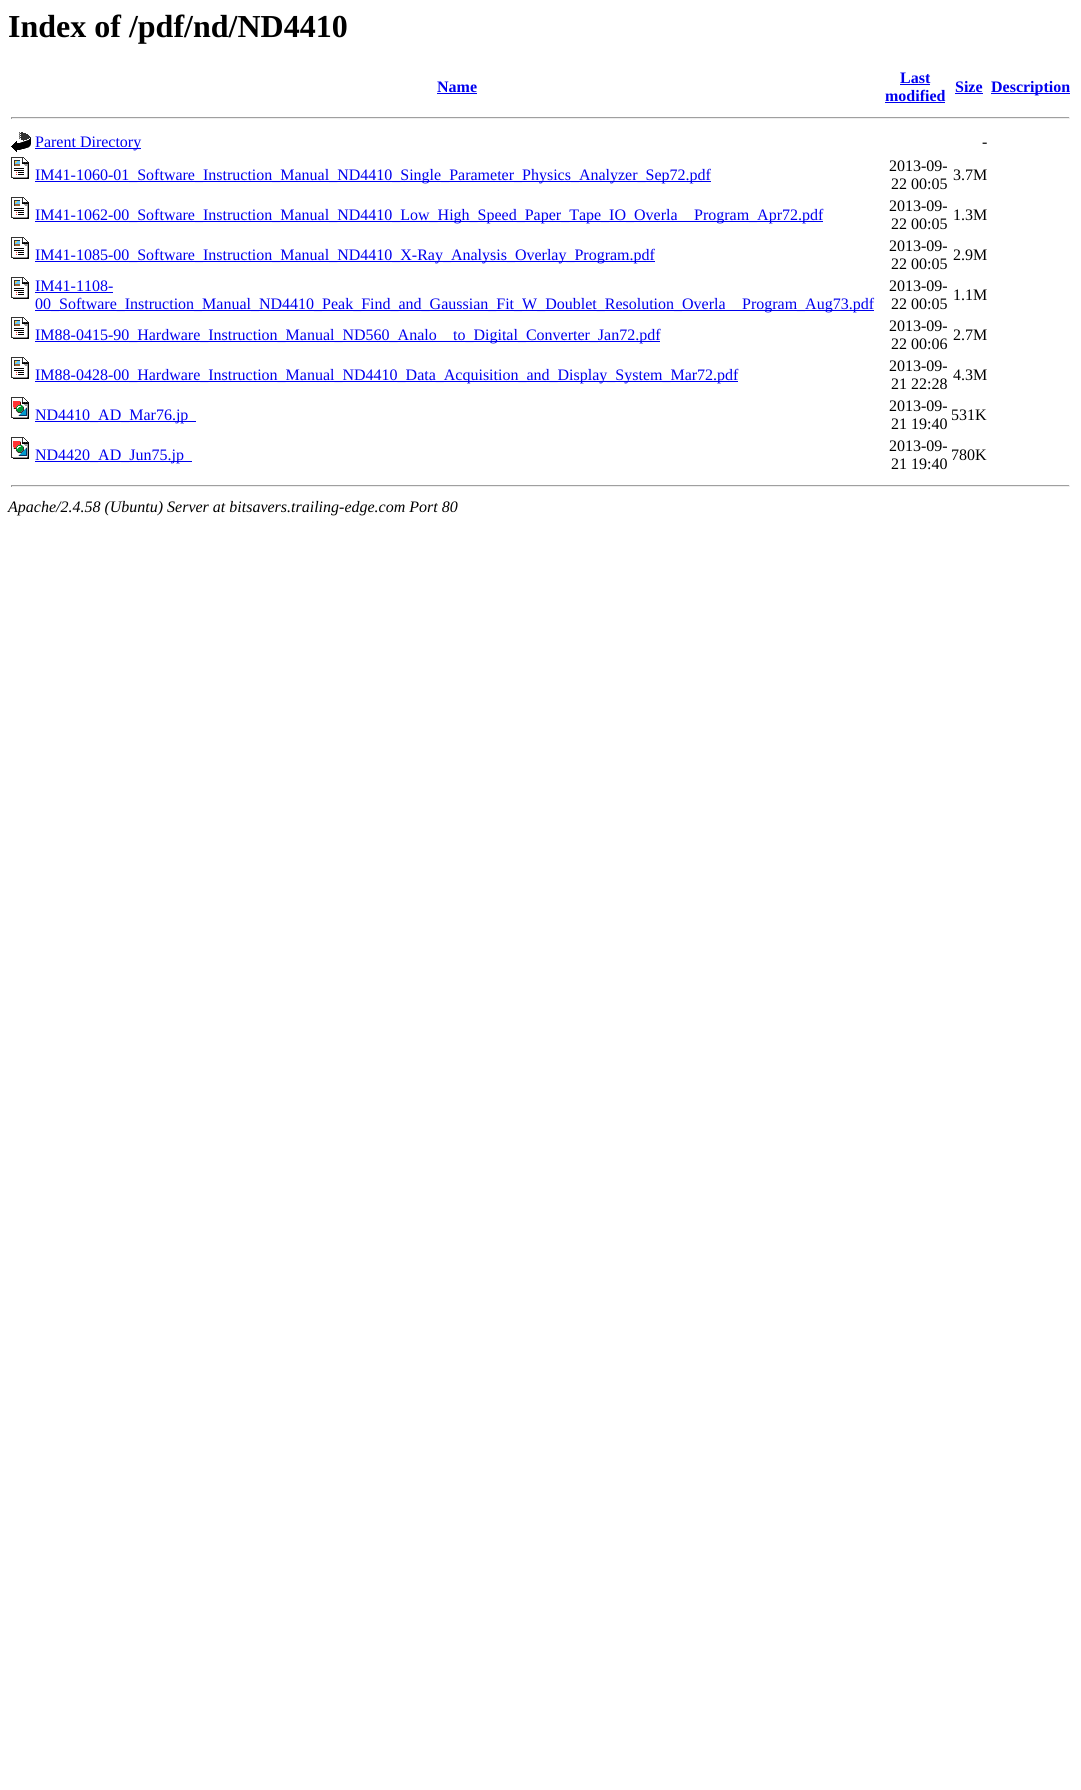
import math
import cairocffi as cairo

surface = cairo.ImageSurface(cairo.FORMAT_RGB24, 1081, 1790)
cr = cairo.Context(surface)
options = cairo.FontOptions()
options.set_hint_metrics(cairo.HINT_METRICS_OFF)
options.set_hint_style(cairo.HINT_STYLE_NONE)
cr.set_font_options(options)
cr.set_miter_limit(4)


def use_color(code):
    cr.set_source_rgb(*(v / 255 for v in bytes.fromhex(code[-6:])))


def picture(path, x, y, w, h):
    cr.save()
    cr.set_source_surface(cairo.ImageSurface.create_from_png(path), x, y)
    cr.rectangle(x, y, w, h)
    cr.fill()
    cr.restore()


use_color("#ffffff")
cr.paint()
cr.select_font_face("Liberation Serif", cairo.FONT_SLANT_NORMAL, cairo.FONT_WEIGHT_BOLD)
cr.set_font_size(32)
use_color("#000000")
cr.move_to(8, 37)
cr.show_text("Index of /pdf/nd/ND4410")
cr.set_font_size(16)
use_color("#0000ee")
cr.move_to(437, 92)
cr.show_text("Name")
cr.rectangle(437, 93, 40, 1)
cr.fill()
cr.move_to(900, 83)
cr.show_text("Last")
cr.rectangle(900, 84, 30, 1)
cr.fill()
cr.move_to(885, 101)
cr.show_text("modified")
cr.rectangle(885, 102, 60, 1)
cr.fill()
cr.move_to(955, 92)
cr.show_text("Size")
cr.rectangle(955, 93, 28, 1)
cr.fill()
cr.rectangle(991, 93, 79, 1)
cr.fill()
cr.move_to(991, 92)
cr.show_text("Description")
use_color("#9f9f9f")
cr.rectangle(11, 117, 1059, 1)
cr.fill()
use_color("#eeeeee")
cr.rectangle(1069, 117, 1, 2)
cr.fill()
cr.rectangle(11, 118, 1059, 1)
cr.fill()
use_color("#9f9f9f")
cr.rectangle(11, 117, 1, 2)
cr.fill()
picture("img1.png", 11, 132, 20, 20)
use_color("#0000ee")
cr.rectangle(35, 148, 106, 1)
cr.fill()
cr.select_font_face("Liberation Serif")
cr.move_to(35, 147)
cr.show_text("Parent Directory")
use_color("#000000")
cr.move_to(982, 147)
cr.show_text("-")
picture("img2.png", 11, 157, 18, 22)
use_color("#0000ee")
cr.rectangle(35, 181, 676, 1)
cr.fill()
cr.move_to(35, 180)
cr.show_text("IM41-1060-01_Software_Instruction_Manual_ND4410_Single_Parameter_Physics_Analyzer_Sep72.pdf")
use_color("#000000")
cr.move_to(889, 171)
cr.show_text("2013-09-")
cr.move_to(891, 189)
cr.show_text("22 00:05")
cr.move_to(953, 180)
cr.show_text("3.7M")
picture("img2.png", 11, 197, 18, 22)
use_color("#0000ee")
cr.rectangle(35, 221, 788, 1)
cr.fill()
cr.move_to(35, 220)
cr.show_text("IM41-1062-00_Software_Instruction_Manual_ND4410_Low_High_Speed_Paper_Tape_IO_Overla")
cr.move_to(694, 220)
cr.show_text("Program_Apr72.pdf")
use_color("#000000")
cr.move_to(889, 211)
cr.show_text("2013-09-")
cr.move_to(891, 229)
cr.show_text("22 00:05")
cr.move_to(953, 220)
cr.show_text("1.3M")
picture("img2.png", 11, 237, 18, 22)
use_color("#0000ee")
cr.rectangle(35, 261, 620, 1)
cr.fill()
cr.move_to(35, 260)
cr.show_text("IM41-1085-00_Software_Instruction_Manual_ND4410_X-Ray_Analysis_Overlay_Program.pdf")
use_color("#000000")
cr.move_to(889, 251)
cr.show_text("2013-09-")
cr.move_to(891, 269)
cr.show_text("22 00:05")
cr.move_to(953, 260)
cr.show_text("2.9M")
picture("img2.png", 11, 277, 18, 22)
use_color("#0000ee")
cr.move_to(35, 291)
cr.show_text("IM41-1108-")
cr.rectangle(35, 292, 78, 1)
cr.fill()
cr.rectangle(35, 310, 839, 1)
cr.fill()
cr.move_to(35, 309)
cr.show_text("00_Software_Instruction_Manual_ND4410_Peak_Find_and_Gaussian_Fit_W_Doublet_Resolution_Overla")
cr.move_to(742, 309)
cr.show_text("Program_Aug73.pdf")
use_color("#000000")
cr.move_to(889, 291)
cr.show_text("2013-09-")
cr.move_to(891, 309)
cr.show_text("22 00:05")
cr.move_to(953, 300)
cr.show_text("1.1M")
picture("img2.png", 11, 317, 18, 22)
use_color("#0000ee")
cr.rectangle(35, 341, 625, 1)
cr.fill()
cr.move_to(35, 340)
cr.show_text("IM88-0415-90_Hardware_Instruction_Manual_ND560_Analo")
cr.move_to(453, 340)
cr.show_text("to_Digital_Converter_Jan72.pdf")
use_color("#000000")
cr.move_to(889, 331)
cr.show_text("2013-09-")
cr.move_to(891, 349)
cr.show_text("22 00:06")
cr.move_to(953, 340)
cr.show_text("2.7M")
picture("img2.png", 11, 357, 18, 22)
use_color("#0000ee")
cr.rectangle(35, 381, 703, 1)
cr.fill()
cr.move_to(35, 380)
cr.show_text("IM88-0428-00_Hardware_Instruction_Manual_ND4410_Data_Acquisition_and_Display_System_Mar72.pdf")
use_color("#000000")
cr.move_to(889, 371)
cr.show_text("2013-09-")
cr.move_to(891, 389)
cr.show_text("21 22:28")
cr.move_to(953, 380)
cr.show_text("4.3M")
picture("img3.png", 11, 397, 18, 22)
use_color("#0000ee")
cr.rectangle(35, 421, 161, 1)
cr.fill()
cr.move_to(35, 420)
cr.show_text("ND4410_AD_Mar76.jp")
use_color("#000000")
cr.move_to(889, 411)
cr.show_text("2013-09-")
cr.move_to(891, 429)
cr.show_text("21 19:40")
cr.move_to(951, 420)
cr.show_text("531K")
picture("img3.png", 11, 437, 18, 22)
use_color("#0000ee")
cr.rectangle(35, 461, 157, 1)
cr.fill()
cr.move_to(35, 460)
cr.show_text("ND4420_AD_Jun75.jp")
use_color("#000000")
cr.move_to(889, 451)
cr.show_text("2013-09-")
cr.move_to(891, 469)
cr.show_text("21 19:40")
cr.move_to(951, 460)
cr.show_text("780K")
use_color("#9f9f9f")
cr.rectangle(11, 485, 1059, 1)
cr.fill()
use_color("#eeeeee")
cr.rectangle(1069, 485, 1, 2)
cr.fill()
cr.rectangle(11, 486, 1059, 1)
cr.fill()
use_color("#9f9f9f")
cr.rectangle(11, 485, 1, 2)
cr.fill()
cr.select_font_face("Liberation Serif", cairo.FONT_SLANT_ITALIC)
use_color("#000000")
cr.move_to(8, 512)
cr.show_text("Apache/2.4.58 (Ubuntu) Server at bitsavers.trailing-edge.com Port 80")
surface.write_to_png("result.png")
